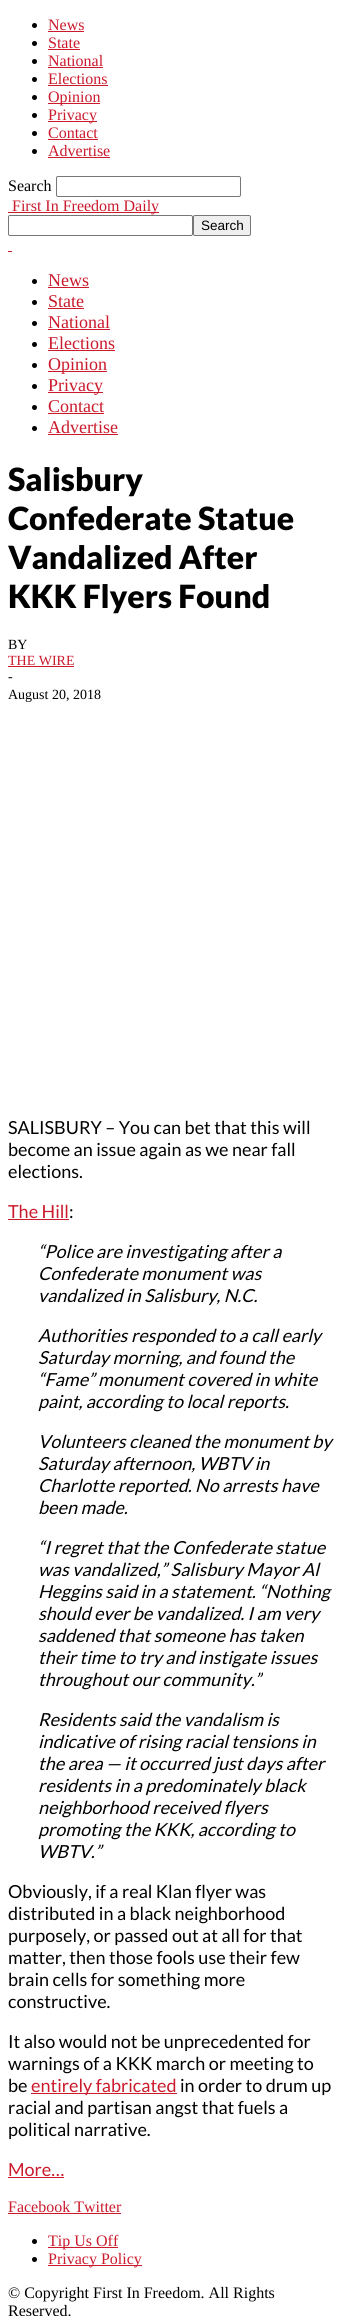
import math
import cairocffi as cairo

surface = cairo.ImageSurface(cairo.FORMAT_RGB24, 340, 2316)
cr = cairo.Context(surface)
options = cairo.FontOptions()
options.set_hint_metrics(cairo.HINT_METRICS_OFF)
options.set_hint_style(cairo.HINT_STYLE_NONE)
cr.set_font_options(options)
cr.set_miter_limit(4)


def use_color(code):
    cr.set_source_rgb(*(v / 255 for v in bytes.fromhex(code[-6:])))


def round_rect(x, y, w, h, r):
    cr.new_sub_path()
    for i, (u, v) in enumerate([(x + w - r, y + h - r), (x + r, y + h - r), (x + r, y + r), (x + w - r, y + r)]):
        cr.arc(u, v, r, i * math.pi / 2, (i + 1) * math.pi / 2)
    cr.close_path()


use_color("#ffffff")
cr.paint()
use_color("#000000")
cr.arc(34.5, 25.5, 2.5, 0, 2 * math.pi)
cr.fill()
cr.select_font_face("Liberation Serif")
cr.set_font_size(16)
use_color("#ca1a2c")
cr.move_to(48, 30)
cr.show_text("News")
cr.rectangle(48, 31, 36, 1)
cr.fill()
use_color("#000000")
cr.arc(34.5, 43.5, 2.5, 0, 2 * math.pi)
cr.fill()
use_color("#ca1a2c")
cr.move_to(48, 48)
cr.show_text("State")
cr.rectangle(48, 49, 32, 1)
cr.fill()
use_color("#000000")
cr.arc(34.5, 61.5, 2.5, 0, 2 * math.pi)
cr.fill()
use_color("#ca1a2c")
cr.move_to(48, 66)
cr.show_text("National")
cr.rectangle(48, 67, 55, 1)
cr.fill()
use_color("#000000")
cr.arc(34.5, 79.5, 2.5, 0, 2 * math.pi)
cr.fill()
use_color("#ca1a2c")
cr.move_to(48, 84)
cr.show_text("Elections")
cr.rectangle(48, 85, 60, 1)
cr.fill()
use_color("#000000")
cr.arc(34.5, 97.5, 2.5, 0, 2 * math.pi)
cr.fill()
use_color("#ca1a2c")
cr.rectangle(48, 103, 52, 1)
cr.fill()
cr.move_to(48, 102)
cr.show_text("Opinion")
use_color("#000000")
cr.new_path()
cr.arc(34.5, 115.5, 2.5, 0, 2 * math.pi)
cr.fill()
use_color("#ca1a2c")
cr.rectangle(48, 121, 49, 1)
cr.fill()
cr.move_to(48, 120)
cr.show_text("Privacy")
use_color("#000000")
cr.new_path()
cr.arc(34.5, 133.5, 2.5, 0, 2 * math.pi)
cr.fill()
use_color("#ca1a2c")
cr.move_to(48, 138)
cr.show_text("Contact")
cr.rectangle(48, 139, 50, 1)
cr.fill()
use_color("#000000")
cr.arc(34.5, 151.5, 2.5, 0, 2 * math.pi)
cr.fill()
use_color("#ca1a2c")
cr.move_to(48, 156)
cr.show_text("Advertise")
cr.rectangle(48, 157, 62, 1)
cr.fill()
use_color("#000000")
cr.move_to(8, 191)
cr.show_text("Search")
round_rect(56.5, 176.5, 184, 20, 1.5)
use_color("#767676")
cr.set_line_width(1)
cr.stroke()
use_color("#ca1a2c")
cr.rectangle(8, 212, 151, 1)
cr.fill()
cr.move_to(12, 211)
cr.show_text("First In Freedom Daily")
round_rect(8.5, 215.5, 184, 20, 1.5)
use_color("#767676")
cr.stroke()
use_color("#efefef")
round_rect(193.5, 215.5, 57, 20, 1.5)
cr.fill_preserve()
use_color("#767676")
cr.stroke()
cr.select_font_face("Liberation Sans")
cr.set_font_size(13.5)
use_color("#000000")
cr.move_to(201, 230)
cr.show_text("Search")
use_color("#ca1a2c")
cr.rectangle(8, 251, 4, 1)
cr.fill()
use_color("#000000")
cr.arc(34.5, 281.5, 2.5, 0, 2 * math.pi)
cr.fill()
cr.select_font_face("Liberation Serif")
cr.set_font_size(18)
use_color("#ca1a2c")
cr.move_to(48, 286)
cr.show_text("News")
cr.rectangle(48, 287, 41, 1)
cr.fill()
use_color("#000000")
cr.arc(34.5, 302.5, 2.5, 0, 2 * math.pi)
cr.fill()
use_color("#ca1a2c")
cr.move_to(48, 307)
cr.show_text("State")
cr.rectangle(48, 308, 36, 1)
cr.fill()
use_color("#000000")
cr.arc(34.5, 323.5, 2.5, 0, 2 * math.pi)
cr.fill()
use_color("#ca1a2c")
cr.move_to(48, 328)
cr.show_text("National")
cr.rectangle(48, 329, 62, 1)
cr.fill()
use_color("#000000")
cr.arc(34.5, 344.5, 2.5, 0, 2 * math.pi)
cr.fill()
use_color("#ca1a2c")
cr.move_to(48, 349)
cr.show_text("Elections")
cr.rectangle(48, 350, 67, 1)
cr.fill()
use_color("#000000")
cr.arc(34.5, 365.5, 2.5, 0, 2 * math.pi)
cr.fill()
use_color("#ca1a2c")
cr.rectangle(48, 371, 59, 1)
cr.fill()
cr.move_to(48, 370)
cr.show_text("Opinion")
use_color("#000000")
cr.new_path()
cr.arc(34.5, 386.5, 2.5, 0, 2 * math.pi)
cr.fill()
use_color("#ca1a2c")
cr.rectangle(48, 392, 55, 1)
cr.fill()
cr.move_to(48, 391)
cr.show_text("Privacy")
use_color("#000000")
cr.new_path()
cr.arc(34.5, 407.5, 2.5, 0, 2 * math.pi)
cr.fill()
use_color("#ca1a2c")
cr.move_to(48, 412)
cr.show_text("Contact")
cr.rectangle(48, 413, 56, 1)
cr.fill()
use_color("#000000")
cr.arc(34.5, 428.5, 2.5, 0, 2 * math.pi)
cr.fill()
use_color("#ca1a2c")
cr.move_to(48, 433)
cr.show_text("Advertise")
cr.rectangle(48, 434, 70, 1)
cr.fill()
cr.select_font_face("Lato Black")
cr.set_font_size(32)
use_color("#000000")
cr.move_to(8, 491)
cr.show_text("Salisbury")
cr.move_to(8, 530)
cr.show_text("Confederate Statue")
cr.move_to(8, 569)
cr.show_text("Vandalized After")
cr.move_to(8, 608)
cr.show_text("KKK Flyers Found")
cr.select_font_face("Liberation Serif")
cr.set_font_size(14)
cr.move_to(8, 649)
cr.show_text("BY")
use_color("#ca1a2c")
cr.move_to(8, 665)
cr.show_text("THE WIRE")
cr.rectangle(8, 666, 66, 1)
cr.fill()
use_color("#000000")
cr.move_to(8, 681)
cr.show_text("-")
cr.move_to(8, 699)
cr.show_text("August 20, 2018")
cr.select_font_face("Lato")
cr.set_font_size(18)
cr.move_to(8, 1134)
cr.show_text("SALISBURY – You can bet that this will")
cr.move_to(8, 1156)
cr.show_text("become an issue again as we near fall")
cr.move_to(8, 1178)
cr.show_text("elections.")
use_color("#ca1a2c")
cr.move_to(8, 1218)
cr.show_text("The Hill")
cr.rectangle(8, 1219, 61, 1)
cr.fill()
use_color("#000000")
cr.move_to(69, 1218)
cr.show_text(":")
cr.select_font_face("Lato", cairo.FONT_SLANT_ITALIC)
cr.move_to(38, 1258)
cr.show_text("“Police are investigating after a")
cr.move_to(38, 1280)
cr.show_text("Confederate monument was")
cr.move_to(38, 1302)
cr.show_text("vandalized in Salisbury, N.C.")
cr.move_to(38, 1342)
cr.show_text("Authorities responded to a call early")
cr.move_to(38, 1364)
cr.show_text("Saturday morning, and found the")
cr.move_to(38, 1386)
cr.show_text("“Fame” monument covered in white")
cr.move_to(38, 1408)
cr.show_text("paint, according to local reports.")
cr.move_to(38, 1448)
cr.show_text("Volunteers cleaned the monument by")
cr.move_to(38, 1470)
cr.show_text("Saturday afternoon, WBTV in")
cr.move_to(38, 1492)
cr.show_text("Charlotte reported. No arrests have")
cr.move_to(38, 1514)
cr.show_text("been made.")
cr.move_to(38, 1554)
cr.show_text("“I regret that the Confederate statue")
cr.move_to(38, 1576)
cr.show_text("was vandalized,” Salisbury Mayor Al")
cr.move_to(38, 1598)
cr.show_text("Heggins said in a statement. “Nothing")
cr.move_to(38, 1620)
cr.show_text("should ever be vandalized. I am very")
cr.move_to(38, 1642)
cr.show_text("saddened that someone has taken")
cr.move_to(38, 1664)
cr.show_text("their time to try and instigate issues")
cr.move_to(38, 1686)
cr.show_text("throughout our community.”")
cr.move_to(38, 1726)
cr.show_text("Residents said the vandalism is")
cr.move_to(38, 1748)
cr.show_text("indicative of rising racial tensions in")
cr.move_to(38, 1770)
cr.show_text("the area — it occurred just days after")
cr.move_to(38, 1792)
cr.show_text("residents in a predominately black")
cr.move_to(38, 1814)
cr.show_text("neighborhood received flyers")
cr.move_to(38, 1836)
cr.show_text("promoting the KKK, according to")
cr.move_to(38, 1858)
cr.show_text("WBTV.”")
cr.select_font_face("Lato")
cr.move_to(8, 1898)
cr.show_text("Obviously, if a real Klan flyer was")
cr.move_to(8, 1920)
cr.show_text("distributed in a black neighborhood")
cr.move_to(8, 1942)
cr.show_text("purposely, or passed out at all for that")
cr.move_to(8, 1964)
cr.show_text("matter, then those fools use their few")
cr.move_to(8, 1986)
cr.show_text("brain cells for something more")
cr.move_to(8, 2008)
cr.show_text("constructive.")
cr.move_to(8, 2048)
cr.show_text("It also would not be unprecedented for")
cr.move_to(8, 2070)
cr.show_text("warnings of a KKK march or meeting to")
cr.move_to(8, 2092)
cr.show_text("be")
use_color("#ca1a2c")
cr.rectangle(31, 2093, 146, 1)
cr.fill()
cr.move_to(31, 2092)
cr.show_text("entirely fabricated")
use_color("#000000")
cr.move_to(180, 2092)
cr.show_text("in order to drum up")
cr.move_to(8, 2114)
cr.show_text("racial and partisan angst that fuels a")
cr.move_to(8, 2136)
cr.show_text("political narrative.")
use_color("#ca1a2c")
cr.move_to(8, 2176)
cr.show_text("More…")
cr.rectangle(8, 2177, 56, 1)
cr.fill()
cr.select_font_face("Liberation Serif")
cr.set_font_size(16)
cr.move_to(8, 2212)
cr.show_text("Facebook Twitter")
cr.rectangle(8, 2213, 113, 1)
cr.fill()
use_color("#000000")
cr.arc(34.5, 2241.5, 2.5, 0, 2 * math.pi)
cr.fill()
use_color("#ca1a2c")
cr.rectangle(48, 2247, 70, 1)
cr.fill()
cr.move_to(48, 2246)
cr.show_text("Tip Us Off")
use_color("#000000")
cr.new_path()
cr.arc(34.5, 2259.5, 2.5, 0, 2 * math.pi)
cr.fill()
use_color("#ca1a2c")
cr.rectangle(48, 2265, 94, 1)
cr.fill()
cr.move_to(48, 2264)
cr.show_text("Privacy Policy")
use_color("#000000")
cr.move_to(8, 2298)
cr.show_text("© Copyright First In Freedom. All Rights")
cr.move_to(8, 2316)
cr.show_text("Reserved.")
surface.write_to_png("result.png")
